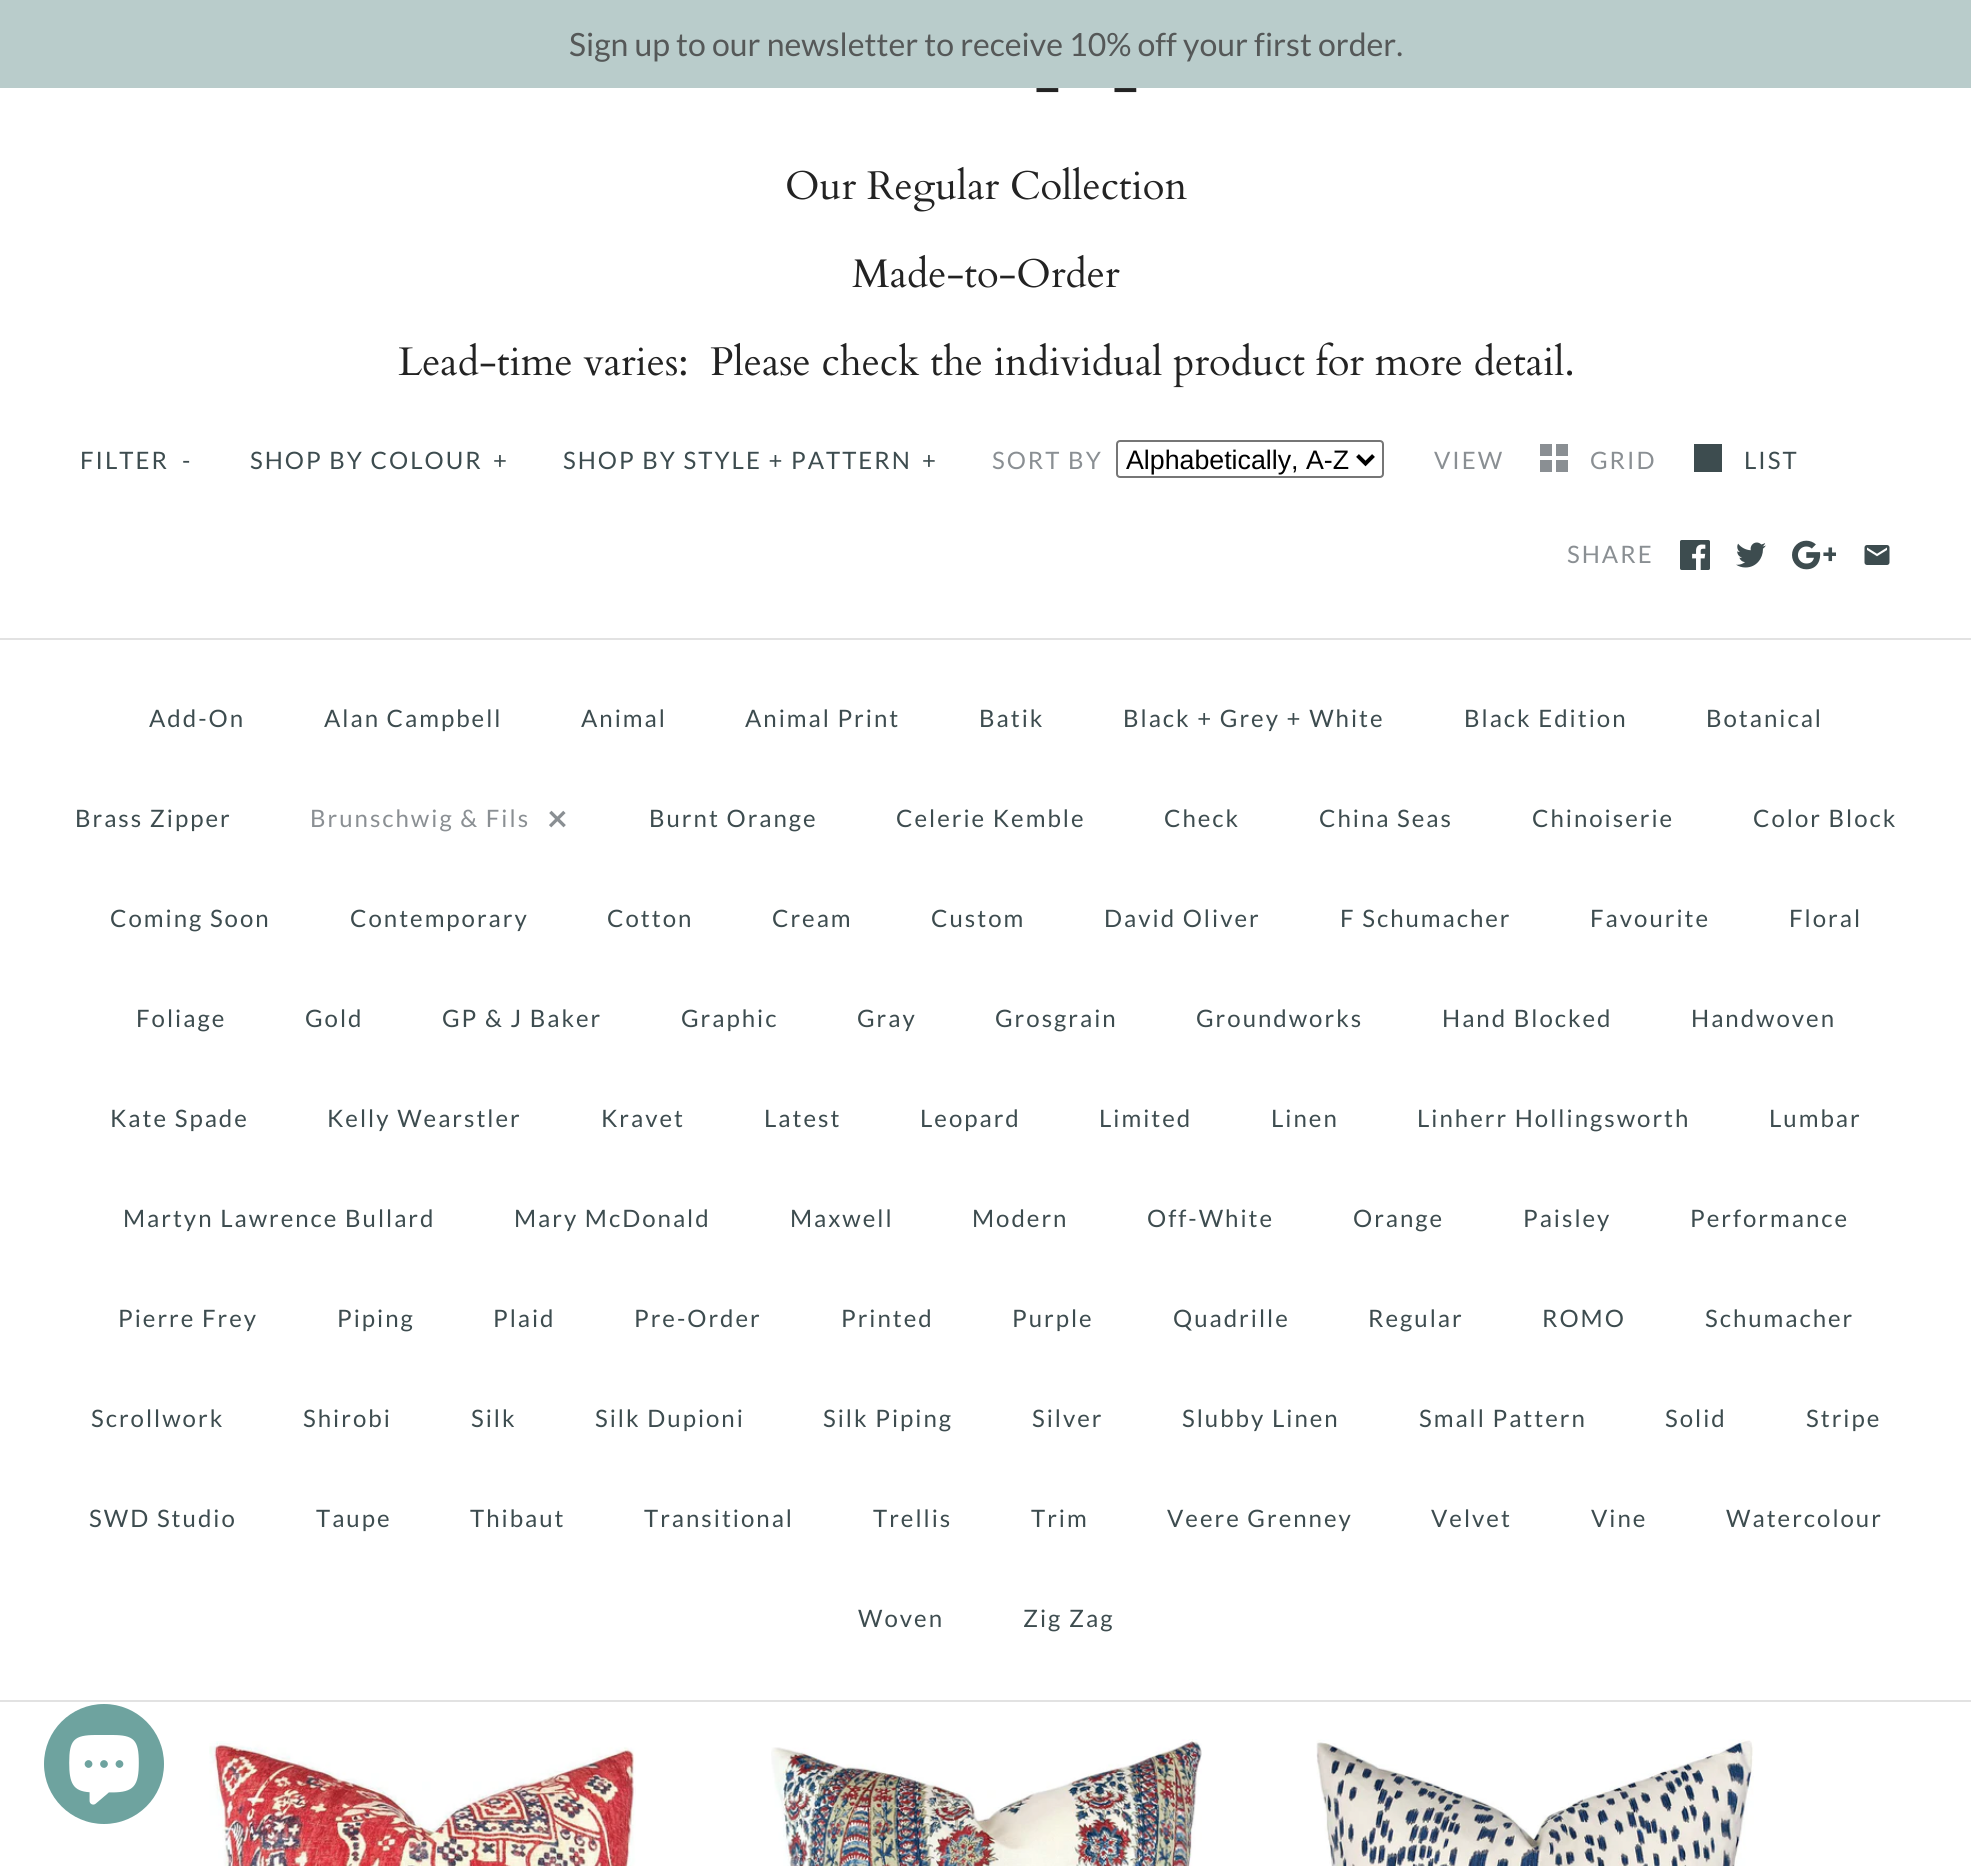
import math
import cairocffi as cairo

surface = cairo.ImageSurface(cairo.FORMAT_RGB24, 1971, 1866)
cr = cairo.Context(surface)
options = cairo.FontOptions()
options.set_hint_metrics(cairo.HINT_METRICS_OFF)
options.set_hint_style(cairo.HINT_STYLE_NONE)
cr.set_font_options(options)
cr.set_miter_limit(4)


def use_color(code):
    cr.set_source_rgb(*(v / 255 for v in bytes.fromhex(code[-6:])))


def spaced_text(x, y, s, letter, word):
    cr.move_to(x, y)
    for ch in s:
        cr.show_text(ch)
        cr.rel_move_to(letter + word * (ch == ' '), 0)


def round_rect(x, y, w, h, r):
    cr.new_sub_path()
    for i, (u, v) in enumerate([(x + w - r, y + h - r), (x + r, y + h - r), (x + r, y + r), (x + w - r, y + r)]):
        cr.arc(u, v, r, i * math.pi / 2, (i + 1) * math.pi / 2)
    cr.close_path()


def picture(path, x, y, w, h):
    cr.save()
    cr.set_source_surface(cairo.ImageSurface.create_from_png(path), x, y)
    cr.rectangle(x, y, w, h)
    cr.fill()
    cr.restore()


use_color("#ffffff")
cr.paint()
use_color("#b9cccb")
cr.rectangle(0, 0, 1971, 88)
cr.fill()
cr.select_font_face("Lato")
cr.set_font_size(32)
use_color("#555858")
cr.move_to(569, 56)
cr.show_text("Sign up to our newsletter to receive 10% off your first order.")
cr.select_font_face("Cardo")
cr.set_font_size(60)
use_color("#232323")
cr.move_to(1034, 105)
cr.show_text("-")
cr.move_to(1112, 105)
cr.show_text("-")
cr.set_font_size(40)
cr.move_to(785, 199)
cr.show_text("Our Regular Collection")
cr.move_to(852, 287)
cr.show_text("Made-to-Order")
cr.move_to(398, 375)
cr.show_text("Lead-time varies:  Please check the individual product for more detail.")
cr.select_font_face("Lato")
cr.set_font_size(24)
use_color("#3d4c4f")
spaced_text(80, 469, "FILTER", 2, 0)
spaced_text(182, 469, "-", 2, 0)
spaced_text(250, 469, "SHOP BY COLOUR", 2, 0)
spaced_text(493, 469, "+", 2, 0)
spaced_text(563, 469, "SHOP BY STYLE + PATTERN", 2, 0)
spaced_text(922, 469, "+", 2, 0)
use_color("#8a8f93")
spaced_text(992, 469, "SORT BY", 2, 0)
round_rect(1117, 441, 266, 36, 3)
use_color("#767676")
cr.stroke()
cr.new_path()
cr.move_to(1357.5, 455.5)
cr.line_to(1365.5, 463.5)
cr.line_to(1373.5, 455.5)
use_color("#000000")
cr.set_line_width(4)
cr.stroke()
cr.select_font_face("Liberation Sans")
cr.set_font_size(26.75)
cr.move_to(1126, 469)
cr.show_text("Alphabetically, A-Z")
cr.select_font_face("Lato")
cr.set_font_size(24)
use_color("#8a8f93")
spaced_text(1434, 469, "VIEW", 2, 0)
cr.rectangle(1540, 444, 12, 12)
cr.fill()
cr.rectangle(1556, 444, 12, 12)
cr.fill()
spaced_text(1590, 469, "GRID", 2, 0)
cr.rectangle(1540, 460, 12, 12)
cr.fill()
cr.rectangle(1556, 460, 12, 12)
cr.fill()
use_color("#3d4c4f")
cr.rectangle(1694, 444, 28, 28)
cr.fill()
spaced_text(1744, 469, "LIST", 2, 0)
use_color("#8a8f93")
spaced_text(1567, 563, "SHARE", 2, 0)
picture("img1.png", 1680, 540, 30, 30)
picture("img2.png", 1736, 542, 30, 26)
picture("img3.png", 1792, 540, 44, 30)
picture("img4.png", 1864, 545, 26, 20)
use_color("#e2e2e2")
cr.rectangle(0, 638, 1971, 2)
cr.fill()
cr.rectangle(0, 1700, 1971, 2)
cr.fill()
use_color("#3d4c4f")
spaced_text(149, 727, "Add-On", 2, 0)
spaced_text(324, 727, "Alan Campbell", 2, 0)
spaced_text(581, 727, "Animal", 2, 0)
spaced_text(745, 727, "Animal Print", 2, 0)
spaced_text(979, 727, "Batik", 2, 0)
spaced_text(1123, 727, "Black + Grey + White", 2, 0)
spaced_text(1464, 727, "Black Edition", 2, 0)
spaced_text(1706, 727, "Botanical", 2, 0)
spaced_text(75, 827, "Brass Zipper", 2, 0)
use_color("#8a8f93")
spaced_text(310, 827, "Brunschwig & Fils", 2, 0)
cr.select_font_face("Lato", cairo.FONT_SLANT_NORMAL, cairo.FONT_WEIGHT_BOLD)
cr.set_font_size(36)
spaced_text(547, 831, "×", 2, 0)
cr.select_font_face("Lato")
cr.set_font_size(24)
use_color("#3d4c4f")
spaced_text(649, 827, "Burnt Orange", 2, 0)
spaced_text(896, 827, "Celerie Kemble", 2, 0)
spaced_text(1164, 827, "Check", 2, 0)
spaced_text(1319, 827, "China Seas", 2, 0)
spaced_text(1532, 827, "Chinoiserie", 2, 0)
spaced_text(1753, 827, "Color Block", 2, 0)
spaced_text(110, 927, "Coming Soon", 2, 0)
spaced_text(350, 927, "Contemporary", 2, 0)
spaced_text(607, 927, "Cotton", 2, 0)
spaced_text(772, 927, "Cream", 2, 0)
spaced_text(931, 927, "Custom", 2, 0)
spaced_text(1104, 927, "David Oliver", 2, 0)
spaced_text(1340, 927, "F Schumacher", 2, 0)
spaced_text(1590, 927, "Favourite", 2, 0)
spaced_text(1789, 927, "Floral", 2, 0)
spaced_text(136, 1027, "Foliage", 2, 0)
spaced_text(305, 1027, "Gold", 2, 0)
spaced_text(442, 1027, "GP & J Baker", 2, 0)
spaced_text(681, 1027, "Graphic", 2, 0)
spaced_text(857, 1027, "Gray", 2, 0)
spaced_text(995, 1027, "Grosgrain", 2, 0)
spaced_text(1196, 1027, "Groundworks", 2, 0)
spaced_text(1442, 1027, "Hand Blocked", 2, 0)
spaced_text(1691, 1027, "Handwoven", 2, 0)
spaced_text(110, 1127, "Kate Spade", 2, 0)
spaced_text(327, 1127, "Kelly Wearstler", 2, 0)
spaced_text(601, 1127, "Kravet", 2, 0)
spaced_text(764, 1127, "Latest", 2, 0)
spaced_text(920, 1127, "Leopard", 2, 0)
spaced_text(1099, 1127, "Limited", 2, 0)
spaced_text(1271, 1127, "Linen", 2, 0)
spaced_text(1417, 1127, "Linherr Hollingsworth", 2, 0)
spaced_text(1769, 1127, "Lumbar", 2, 0)
spaced_text(123, 1227, "Martyn Lawrence Bullard", 2, 0)
spaced_text(514, 1227, "Mary McDonald", 2, 0)
spaced_text(790, 1227, "Maxwell", 2, 0)
spaced_text(972, 1227, "Modern", 2, 0)
spaced_text(1147, 1227, "Off-White", 2, 0)
spaced_text(1353, 1227, "Orange", 2, 0)
spaced_text(1523, 1227, "Paisley", 2, 0)
spaced_text(1690, 1227, "Performance", 2, 0)
spaced_text(118, 1327, "Pierre Frey", 2, 0)
spaced_text(337, 1327, "Piping", 2, 0)
spaced_text(493, 1327, "Plaid", 2, 0)
spaced_text(634, 1327, "Pre-Order", 2, 0)
spaced_text(841, 1327, "Printed", 2, 0)
spaced_text(1012, 1327, "Purple", 2, 0)
spaced_text(1173, 1327, "Quadrille", 2, 0)
spaced_text(1368, 1327, "Regular", 2, 0)
spaced_text(1542, 1327, "ROMO", 2, 0)
spaced_text(1705, 1327, "Schumacher", 2, 0)
spaced_text(91, 1427, "Scrollwork", 2, 0)
spaced_text(303, 1427, "Shirobi", 2, 0)
spaced_text(471, 1427, "Silk", 2, 0)
spaced_text(595, 1427, "Silk Dupioni", 2, 0)
spaced_text(823, 1427, "Silk Piping", 2, 0)
spaced_text(1032, 1427, "Silver", 2, 0)
spaced_text(1182, 1427, "Slubby Linen", 2, 0)
spaced_text(1419, 1427, "Small Pattern", 2, 0)
spaced_text(1665, 1427, "Solid", 2, 0)
spaced_text(1806, 1427, "Stripe", 2, 0)
spaced_text(89, 1527, "SWD Studio", 2, 0)
spaced_text(316, 1527, "Taupe", 2, 0)
spaced_text(470, 1527, "Thibaut", 2, 0)
spaced_text(644, 1527, "Transitional", 2, 0)
spaced_text(873, 1527, "Trellis", 2, 0)
spaced_text(1031, 1527, "Trim", 2, 0)
spaced_text(1167, 1527, "Veere Grenney", 2, 0)
spaced_text(1431, 1527, "Velvet", 2, 0)
spaced_text(1591, 1527, "Vine", 2, 0)
spaced_text(1726, 1527, "Watercolour", 2, 0)
spaced_text(858, 1627, "Woven", 2, 0)
spaced_text(1023, 1627, "Zig Zag", 2, 0)
picture("img5.png", 209, 1741, 427, 125)
picture("img6.png", 771, 1739, 431, 127)
picture("img7.png", 1316, 1739, 438, 127)
use_color("#6ea39f")
cr.arc(104, 1764, 60, 0, 2 * math.pi)
cr.fill()
picture("img8.png", 69, 1735, 70, 70)
surface.write_to_png("result.png")
